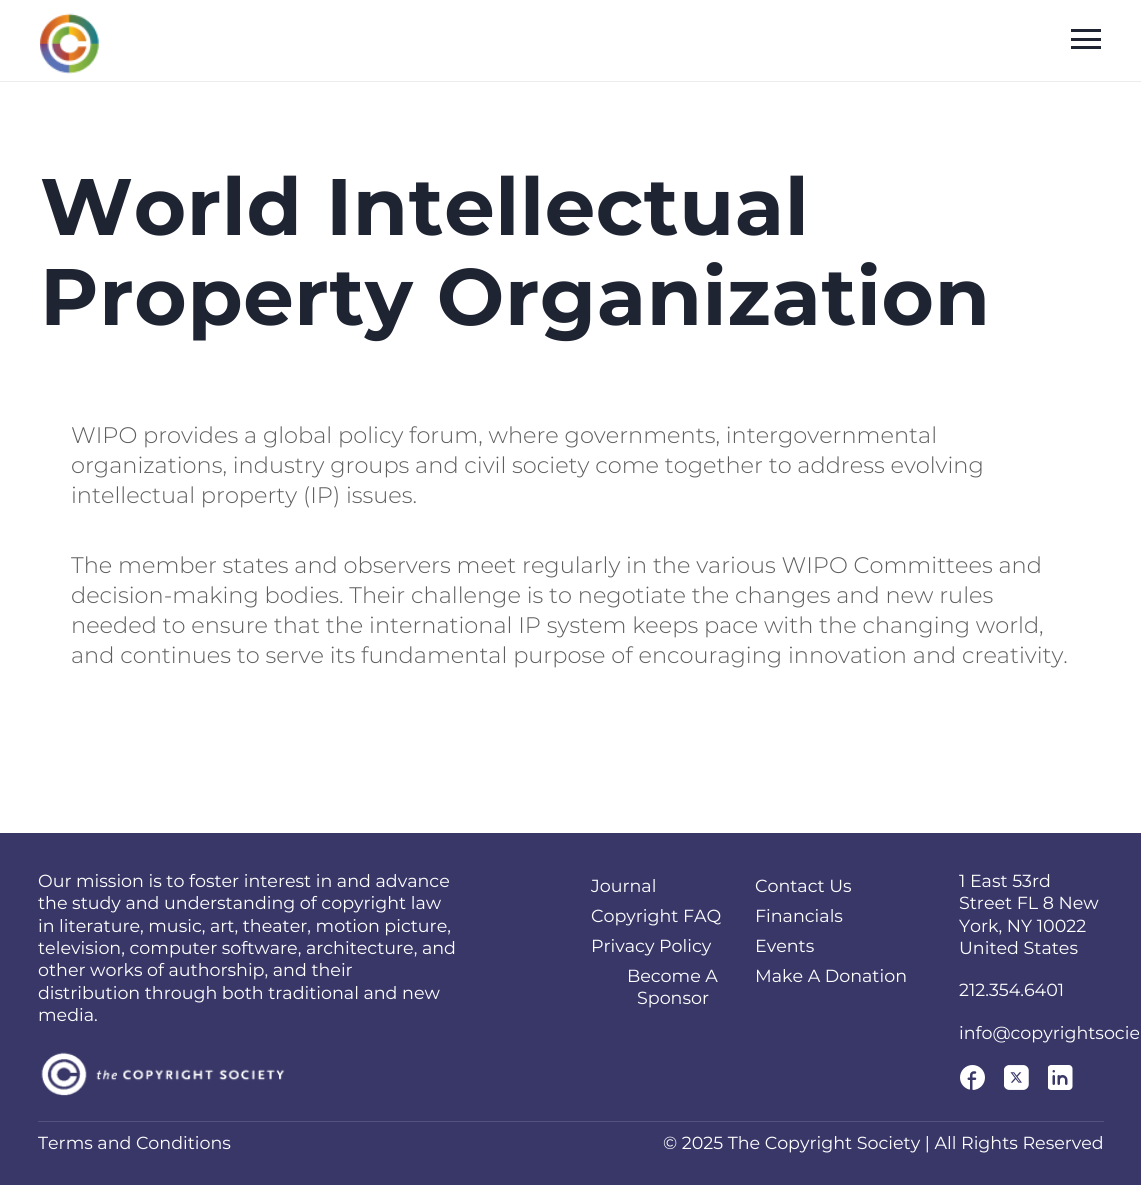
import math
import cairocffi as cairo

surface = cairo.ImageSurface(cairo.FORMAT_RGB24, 1141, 1185)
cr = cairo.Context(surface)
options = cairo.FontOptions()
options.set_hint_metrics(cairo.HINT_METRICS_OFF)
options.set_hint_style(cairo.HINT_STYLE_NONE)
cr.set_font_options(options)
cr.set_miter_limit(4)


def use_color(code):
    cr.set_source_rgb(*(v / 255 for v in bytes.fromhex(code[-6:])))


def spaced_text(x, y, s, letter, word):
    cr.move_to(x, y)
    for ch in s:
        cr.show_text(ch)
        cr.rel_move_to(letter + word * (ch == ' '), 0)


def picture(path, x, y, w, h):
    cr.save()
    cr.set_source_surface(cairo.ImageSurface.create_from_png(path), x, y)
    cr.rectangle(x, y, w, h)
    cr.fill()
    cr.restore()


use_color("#ffffff")
cr.paint()
use_color("#ececec")
cr.rectangle(0, 81, 1141, 1)
cr.fill()
picture("img1.png", 40, 13, 59, 61)
use_color("#1f2432")
cr.rectangle(1071, 29, 30, 3)
cr.fill()
cr.rectangle(1071, 38, 30, 3)
cr.fill()
cr.rectangle(1071, 46, 30, 3)
cr.fill()
cr.select_font_face("Montserrat", cairo.FONT_SLANT_NORMAL, cairo.FONT_WEIGHT_BOLD)
cr.set_font_size(80)
spaced_text(40, 235, "World Intellectual", 0.65, 0)
spaced_text(40, 325, "Property Organization", 0.65, 0)
cr.select_font_face("Montserrat Light")
cr.set_font_size(22.5)
use_color("#5e5e5e")
cr.move_to(71, 443)
cr.show_text("WIPO provides a global policy forum, where governments, intergovernmental")
cr.move_to(71, 473)
cr.show_text("organizations, industry groups and civil society come together to address evolving")
cr.move_to(71, 503)
cr.show_text("intellectual property (IP) issues.")
cr.move_to(71, 573)
cr.show_text("The member states and observers meet regularly in the various WIPO Committees and")
cr.move_to(71, 603)
cr.show_text("decision-making bodies. Their challenge is to negotiate the changes and new rules")
cr.move_to(71, 633)
cr.show_text("needed to ensure that the international IP system keeps pace with the changing world,")
cr.move_to(71, 663)
cr.show_text("and continues to serve its fundamental purpose of encouraging innovation and creativity.")
use_color("#393768")
cr.rectangle(0, 833, 1141, 352)
cr.fill()
use_color("#55537d")
cr.rectangle(38, 1121, 1066, 1)
cr.fill()
cr.select_font_face("Montserrat")
cr.set_font_size(17.5)
use_color("#ffffff")
cr.move_to(38, 887)
cr.show_text("Our mission is to foster interest in and advance")
cr.move_to(38, 909)
cr.show_text("the study and understanding of copyright law")
cr.move_to(38, 932)
cr.show_text("in literature, music, art, theater, motion picture,")
cr.move_to(38, 954)
cr.show_text("television, computer software, architecture, and")
cr.move_to(38, 976)
cr.show_text("other works of authorship, and their")
cr.move_to(38, 999)
cr.show_text("distribution through both traditional and new")
cr.move_to(38, 1021)
cr.show_text("media.")
picture("img2.png", 41, 1052, 244, 44)
cr.move_to(591, 892)
cr.show_text("Journal")
cr.move_to(755, 892)
cr.show_text("Contact Us")
cr.move_to(591, 922)
cr.show_text("Copyright FAQ")
cr.move_to(755, 922)
cr.show_text("Financials")
cr.move_to(591, 952)
cr.show_text("Privacy Policy")
cr.move_to(755, 952)
cr.show_text("Events")
cr.move_to(627, 982)
cr.show_text("Become A")
cr.move_to(637, 1004)
cr.show_text("Sponsor")
cr.move_to(755, 982)
cr.show_text("Make A Donation")
cr.move_to(959, 887)
cr.show_text("1 East 53rd")
cr.move_to(959, 909)
cr.show_text("Street FL 8 New")
cr.move_to(959, 932)
cr.show_text("York, NY 10022")
cr.move_to(959, 954)
cr.show_text("United States")
cr.move_to(959, 996)
cr.show_text("212.354.6401")
cr.move_to(959, 1039)
cr.show_text("info@copyrightsocie")
picture("img3.png", 960, 1065, 25, 25)
picture("img4.png", 1004, 1065, 25, 25)
picture("img5.png", 1048, 1065, 25, 25)
cr.move_to(38, 1149)
cr.show_text("Terms and Conditions")
cr.move_to(663, 1149)
cr.show_text("© 2025 The Copyright Society | All Rights Reserved")
surface.write_to_png("result.png")
